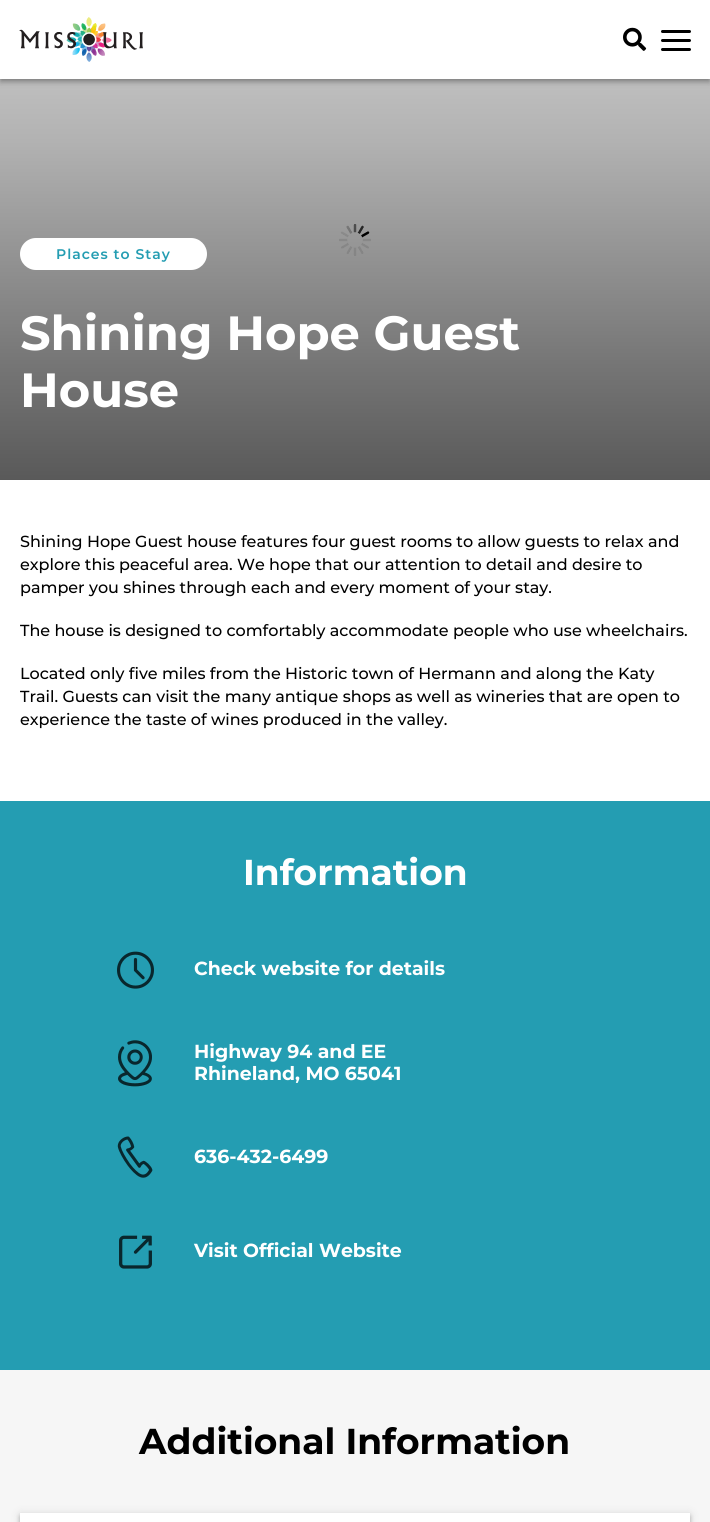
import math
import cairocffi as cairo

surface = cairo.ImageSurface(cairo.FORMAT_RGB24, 710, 1522)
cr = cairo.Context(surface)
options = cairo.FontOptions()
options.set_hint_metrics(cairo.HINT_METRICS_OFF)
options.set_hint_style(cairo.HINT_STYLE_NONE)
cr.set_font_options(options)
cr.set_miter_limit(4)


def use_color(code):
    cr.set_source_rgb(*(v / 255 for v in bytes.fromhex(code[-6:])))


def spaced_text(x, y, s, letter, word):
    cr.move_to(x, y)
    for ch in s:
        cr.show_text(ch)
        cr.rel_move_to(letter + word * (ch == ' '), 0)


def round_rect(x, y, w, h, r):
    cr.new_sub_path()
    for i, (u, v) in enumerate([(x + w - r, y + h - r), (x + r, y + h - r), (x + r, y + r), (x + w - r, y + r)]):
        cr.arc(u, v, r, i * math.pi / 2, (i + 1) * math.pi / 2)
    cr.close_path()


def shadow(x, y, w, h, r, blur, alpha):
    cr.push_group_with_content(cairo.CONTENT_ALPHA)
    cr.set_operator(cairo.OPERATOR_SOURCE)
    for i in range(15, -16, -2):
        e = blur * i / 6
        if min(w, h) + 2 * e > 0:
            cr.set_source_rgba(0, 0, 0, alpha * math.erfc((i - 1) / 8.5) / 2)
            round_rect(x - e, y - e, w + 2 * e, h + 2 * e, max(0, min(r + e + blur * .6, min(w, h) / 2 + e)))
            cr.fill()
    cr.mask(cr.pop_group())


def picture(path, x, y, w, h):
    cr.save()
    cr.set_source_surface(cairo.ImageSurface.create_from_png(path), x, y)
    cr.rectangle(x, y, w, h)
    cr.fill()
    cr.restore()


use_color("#ffffff")
cr.paint()
picture("img3.png", 339, 224, 32, 32)
gradient = cairo.LinearGradient(355, 480, 355, 0)
gradient.add_color_stop_rgba(0, 0, 0, 0, 0.65)
gradient.add_color_stop_rgba(0.24, 0, 0, 0, 0.54)
gradient.add_color_stop_rgba(0.71, 0, 0, 0, 0.3)
gradient.add_color_stop_rgba(1, 0, 0, 0, 0.19)
cr.set_source(gradient)
cr.rectangle(0, 79, 710, 401)
cr.fill()
use_color("#000000")
shadow(0, 1, 710, 79, 0, 5, 0.12)
shadow(0, 4, 710, 79, 0, 2.5, 0.14)
shadow(1, 3, 708, 77, 0, 2, 0.2)
use_color("#ffffff")
cr.rectangle(0, 0, 710, 79)
cr.fill()
picture("img1.png", 19, 17, 124, 45)
picture("img2.png", 623, 27, 24, 24)
use_color("#000000")
round_rect(661, 30, 30, 3, 1.5)
cr.fill()
round_rect(661, 39, 30, 3, 1.5)
cr.fill()
round_rect(661, 48, 30, 3, 1.5)
cr.fill()
use_color("#ffffff")
round_rect(20, 238, 187, 32, 16)
cr.fill()
cr.select_font_face("Montserrat SemiBold")
cr.set_font_size(14)
use_color("#249db2")
spaced_text(56, 259, "Places to Stay", 1, 0)
cr.select_font_face("Montserrat", cairo.FONT_SLANT_NORMAL, cairo.FONT_WEIGHT_BOLD)
cr.set_font_size(48)
use_color("#ffffff")
cr.move_to(20, 350)
cr.show_text("Shining Hope Guest")
cr.move_to(20, 407)
cr.show_text("House")
cr.select_font_face("Montserrat Medium")
cr.set_font_size(16)
use_color("#000000")
cr.move_to(20, 547)
cr.show_text("Shining Hope Guest house features four guest rooms to allow guests to relax and")
cr.move_to(20, 570)
cr.show_text("explore this peaceful area. We hope that our attention to detail and desire to")
cr.move_to(20, 593)
cr.show_text("pamper you shines through each and every moment of your stay.")
cr.move_to(20, 636)
cr.show_text("The house is designed to comfortably accommodate people who use wheelchairs.")
cr.move_to(20, 679)
cr.show_text("Located only five miles from the Historic town of Hermann and along the Katy")
cr.move_to(20, 702)
cr.show_text("Trail. Guests can visit the many antique shops as well as wineries that are open to")
cr.move_to(20, 725)
cr.show_text("experience the taste of wines produced in the valley.")
use_color("#249db2")
cr.rectangle(0, 801, 710, 569)
cr.fill()
cr.select_font_face("Montserrat", cairo.FONT_SLANT_NORMAL, cairo.FONT_WEIGHT_BOLD)
cr.set_font_size(36)
use_color("#ffffff")
cr.move_to(243, 885)
cr.show_text("Information")
picture("img4.png", 117, 951, 37, 38)
cr.set_font_size(18.9)
cr.move_to(194, 975)
cr.show_text("Check website for details")
picture("img5.png", 118, 1040, 34, 47)
cr.move_to(194, 1058)
cr.show_text("Highway 94 and EE")
cr.move_to(194, 1080)
cr.show_text("Rhineland, MO 65041")
picture("img6.png", 117, 1136, 36, 42)
cr.move_to(194, 1163)
cr.show_text("636-432-6499")
picture("img7.png", 119, 1235, 33, 34)
cr.move_to(194, 1257)
cr.show_text("Visit Official Website")
use_color("#f6f6f6")
cr.rectangle(0, 1370, 710, 152)
cr.fill()
cr.set_font_size(36)
use_color("#000000")
cr.move_to(139, 1454)
cr.show_text("Additional Information")
use_color("#000000")
shadow(20, 1514, 670, 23, 0, 5, 0.12)
shadow(20, 1517, 670, 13, 0, 2.5, 0.14)
shadow(21, 1516, 668, 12, 0, 2, 0.2)
use_color("#ffffff")
cr.rectangle(20, 1513, 670, 9)
cr.fill()
surface.write_to_png("result.png")
